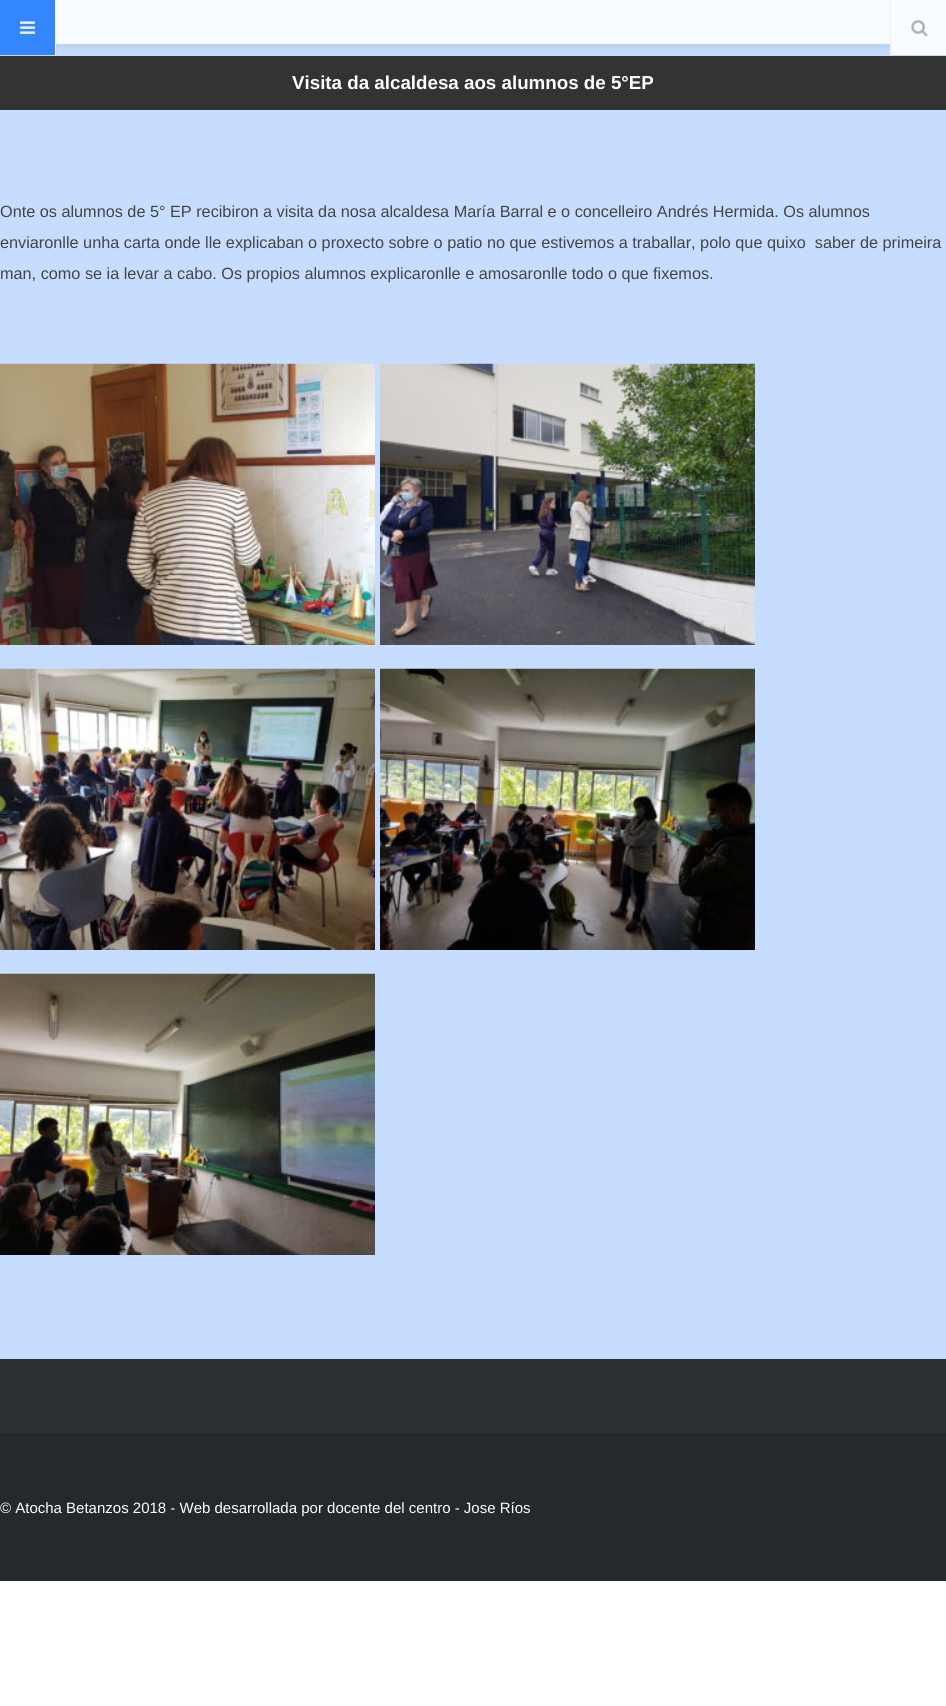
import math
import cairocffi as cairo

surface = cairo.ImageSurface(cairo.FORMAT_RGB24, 946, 1706)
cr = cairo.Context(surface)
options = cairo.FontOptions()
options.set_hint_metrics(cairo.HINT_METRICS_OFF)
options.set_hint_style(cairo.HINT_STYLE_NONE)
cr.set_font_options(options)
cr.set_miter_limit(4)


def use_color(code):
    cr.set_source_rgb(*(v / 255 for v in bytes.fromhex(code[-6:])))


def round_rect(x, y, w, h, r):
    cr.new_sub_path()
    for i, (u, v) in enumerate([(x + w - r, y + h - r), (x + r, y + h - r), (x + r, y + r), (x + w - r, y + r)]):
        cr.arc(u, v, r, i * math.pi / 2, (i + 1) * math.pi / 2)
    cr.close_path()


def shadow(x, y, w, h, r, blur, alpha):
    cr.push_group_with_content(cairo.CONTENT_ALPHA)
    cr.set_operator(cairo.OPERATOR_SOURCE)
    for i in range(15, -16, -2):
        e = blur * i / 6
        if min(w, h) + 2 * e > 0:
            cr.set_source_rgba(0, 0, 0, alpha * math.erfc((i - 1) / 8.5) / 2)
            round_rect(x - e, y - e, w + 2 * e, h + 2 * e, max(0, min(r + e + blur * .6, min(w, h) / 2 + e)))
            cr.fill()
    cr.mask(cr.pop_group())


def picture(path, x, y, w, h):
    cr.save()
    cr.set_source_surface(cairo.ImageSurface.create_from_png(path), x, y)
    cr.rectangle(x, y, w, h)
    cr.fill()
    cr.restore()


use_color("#ffffff")
cr.paint()
use_color("#c7ddff")
cr.rectangle(0, 44, 946, 1315)
cr.fill()
use_color("#333333")
cr.rectangle(0, 56, 946, 54)
cr.fill()
use_color("#000000")
shadow(0, 3, 946, 43, 0, 6, 0.09)
use_color("#f9fcff")
cr.rectangle(56, 0, 834, 44)
cr.fill()
use_color("#3486ff")
cr.rectangle(0, 0, 55, 55)
cr.fill()
use_color("#f0f2f5")
cr.rectangle(55, 0, 1, 55)
cr.fill()
picture("img1.png", 20, 21, 15, 13)
use_color("#f9fcff")
cr.rectangle(891, 0, 55, 55)
cr.fill()
use_color("#f0f2f5")
cr.rectangle(890, 0, 1, 55)
cr.fill()
picture("img2.png", 911, 20, 17, 17)
cr.select_font_face("Liberation Sans", cairo.FONT_SLANT_NORMAL, cairo.FONT_WEIGHT_BOLD)
cr.set_font_size(18.75)
use_color("#ffffff")
cr.move_to(292, 89)
cr.show_text("Visita da alcaldesa aos alumnos de 5°EP")
cr.select_font_face("Liberation Sans")
cr.set_font_size(16.25)
use_color("#444444")
cr.move_to(0, 217)
cr.show_text("Onte os alumnos de 5° EP recibiron a visita da nosa alcaldesa María Barral e o concelleiro Andrés Hermida. Os alumnos")
cr.move_to(0, 248)
cr.show_text("enviaronlle unha carta onde lle explicaban o proxecto sobre o patio no que estivemos a traballar, polo que quixo  saber de primeira")
cr.move_to(0, 279)
cr.show_text("man, como se ia levar a cabo. Os propios alumnos explicaronlle e amosaronlle todo o que fixemos.")
picture("img3.png", 0, 363, 375, 282)
picture("img4.png", 380, 363, 375, 282)
picture("img5.png", 0, 668, 375, 282)
picture("img6.png", 380, 668, 375, 282)
picture("img7.png", 0, 973, 375, 282)
use_color("#2d3033")
cr.rectangle(0, 1359, 946, 75)
cr.fill()
use_color("#202325")
cr.rectangle(0, 1434, 946, 1)
cr.fill()
use_color("#26292b")
cr.rectangle(0, 1435, 946, 146)
cr.fill()
cr.set_font_size(15)
use_color("#ffffff")
cr.move_to(0, 1513)
cr.show_text("© Atocha Betanzos 2018 - Web desarrollada por docente del centro - Jose Ríos")
surface.write_to_png("result.png")
